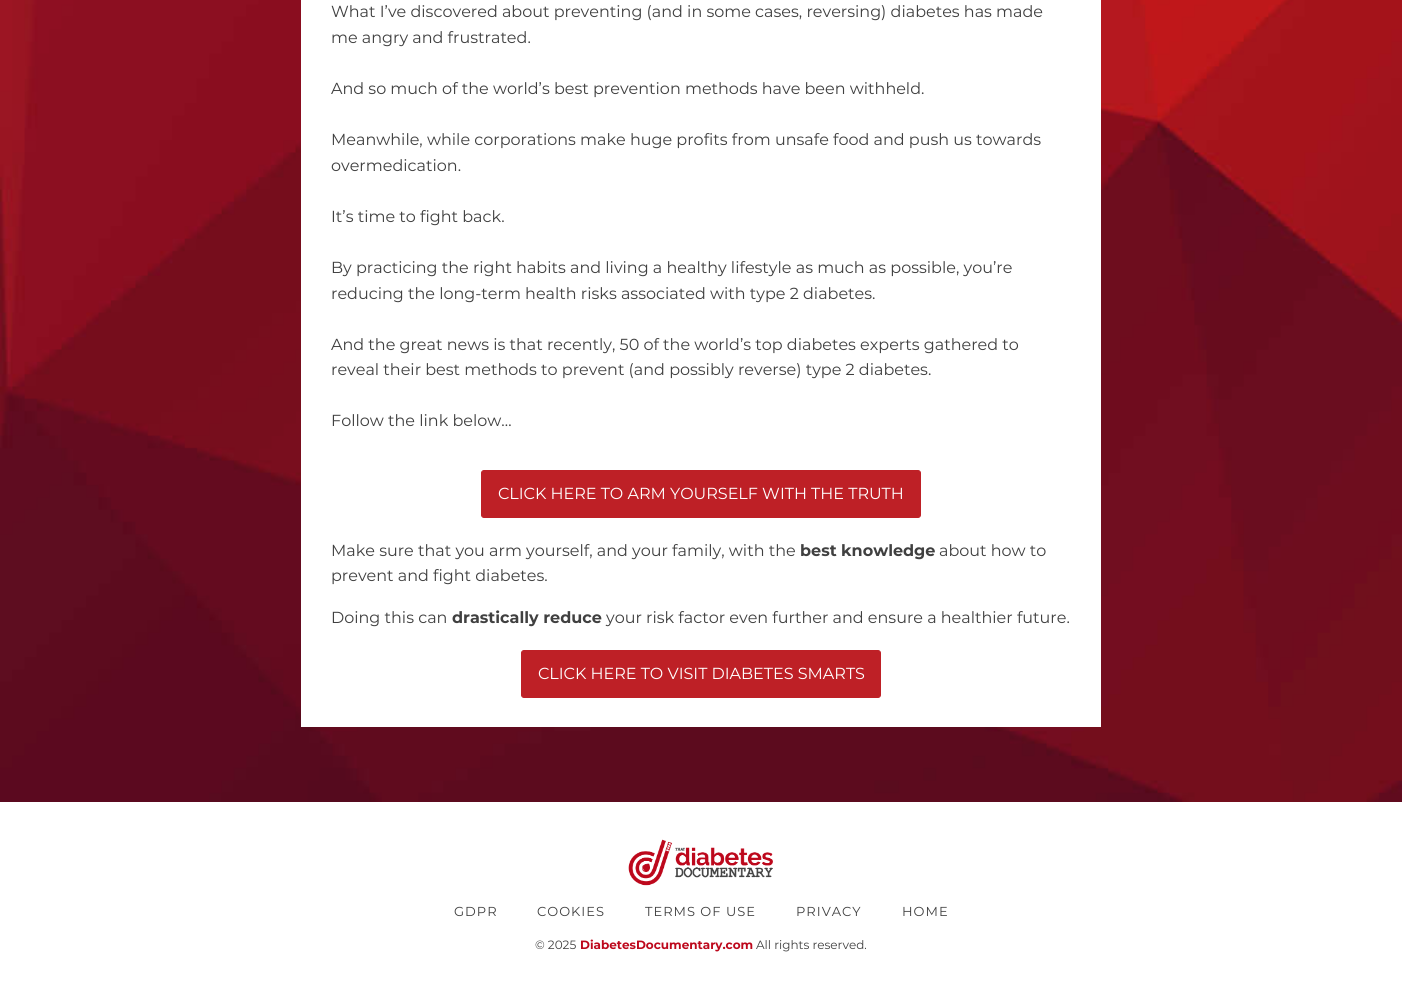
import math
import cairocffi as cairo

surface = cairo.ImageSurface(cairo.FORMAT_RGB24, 1402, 994)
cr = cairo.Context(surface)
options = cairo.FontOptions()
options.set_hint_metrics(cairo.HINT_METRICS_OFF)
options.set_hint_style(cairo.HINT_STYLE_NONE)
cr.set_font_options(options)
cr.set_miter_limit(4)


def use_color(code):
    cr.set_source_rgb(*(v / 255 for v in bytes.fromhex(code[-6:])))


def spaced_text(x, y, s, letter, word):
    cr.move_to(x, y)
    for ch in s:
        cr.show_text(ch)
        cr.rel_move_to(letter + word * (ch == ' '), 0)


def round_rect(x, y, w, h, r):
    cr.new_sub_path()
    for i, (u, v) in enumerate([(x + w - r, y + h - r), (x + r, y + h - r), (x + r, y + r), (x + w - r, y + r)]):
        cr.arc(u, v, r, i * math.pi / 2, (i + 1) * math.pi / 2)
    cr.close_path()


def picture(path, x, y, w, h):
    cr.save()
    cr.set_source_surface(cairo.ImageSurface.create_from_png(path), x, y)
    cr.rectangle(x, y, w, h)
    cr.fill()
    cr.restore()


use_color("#ffffff")
cr.paint()
picture("img1.png", 0, 0, 1402, 802)
use_color("#ffffff")
cr.rectangle(301, 0, 800, 727)
cr.fill()
cr.select_font_face("Montserrat")
cr.set_font_size(16)
use_color("#404040")
cr.move_to(331, 17)
cr.show_text("What I’ve discovered about preventing (and in some cases, reversing) diabetes has made")
cr.move_to(331, 43)
cr.show_text("me angry and frustrated.")
cr.move_to(331, 94)
cr.show_text("And so much of the world’s best prevention methods have been withheld.")
cr.move_to(331, 145)
cr.show_text("Meanwhile, while corporations make huge profits from unsafe food and push us towards")
cr.move_to(331, 171)
cr.show_text("overmedication.")
cr.move_to(331, 222)
cr.show_text("It’s time to fight back.")
cr.move_to(331, 273)
cr.show_text("By practicing the right habits and living a healthy lifestyle as much as possible, you’re")
cr.move_to(331, 299)
cr.show_text("reducing the long-term health risks associated with type 2 diabetes.")
cr.move_to(331, 350)
cr.show_text("And the great news is that recently, 50 of the world’s top diabetes experts gathered to")
cr.move_to(331, 375)
cr.show_text("reveal their best methods to prevent (and possibly reverse) type 2 diabetes.")
cr.move_to(331, 426)
cr.show_text("Follow the link below…")
use_color("#be2026")
round_rect(481.5, 470.5, 439, 47, 2.5)
cr.fill_preserve()
cr.set_line_width(1)
cr.stroke()
use_color("#ffffff")
cr.move_to(498, 499)
cr.show_text("CLICK HERE TO ARM YOURSELF WITH THE TRUTH")
use_color("#404040")
cr.move_to(331, 556)
cr.show_text("Make sure that you arm yourself, and your family, with the")
cr.select_font_face("Montserrat", cairo.FONT_SLANT_NORMAL, cairo.FONT_WEIGHT_BOLD)
cr.move_to(800, 556)
cr.show_text("best knowledge")
cr.select_font_face("Montserrat")
cr.move_to(939, 556)
cr.show_text("about how to")
cr.move_to(331, 581)
cr.show_text("prevent and fight diabetes.")
cr.move_to(331, 623)
cr.show_text("Doing this can")
cr.select_font_face("Montserrat", cairo.FONT_SLANT_NORMAL, cairo.FONT_WEIGHT_BOLD)
cr.move_to(452, 623)
cr.show_text("drastically reduce")
cr.select_font_face("Montserrat")
cr.move_to(606, 623)
cr.show_text("your risk factor even further and ensure a healthier future.")
use_color("#be2026")
round_rect(521.5, 650.5, 359, 47, 2.5)
cr.fill_preserve()
cr.stroke()
use_color("#ffffff")
cr.move_to(538, 679)
cr.show_text("CLICK HERE TO VISIT DIABETES SMARTS")
picture("img2.png", 628, 839, 145, 47)
cr.set_font_size(13)
use_color("#404040")
spaced_text(454, 916, "GDPR", 1, 0)
spaced_text(537, 916, "COOKIES", 1, 0)
spaced_text(645, 916, "TERMS OF USE", 1, 0)
spaced_text(796, 916, "PRIVACY", 1, 0)
spaced_text(902, 916, "HOME", 1, 0)
cr.set_font_size(12)
cr.move_to(535, 949)
cr.show_text("© 2025")
cr.select_font_face("Montserrat", cairo.FONT_SLANT_NORMAL, cairo.FONT_WEIGHT_BOLD)
use_color("#bd081c")
cr.move_to(580, 949)
cr.show_text("DiabetesDocumentary.com")
cr.select_font_face("Montserrat")
use_color("#404040")
cr.move_to(756, 949)
cr.show_text("All rights reserved.")
surface.write_to_png("result.png")
